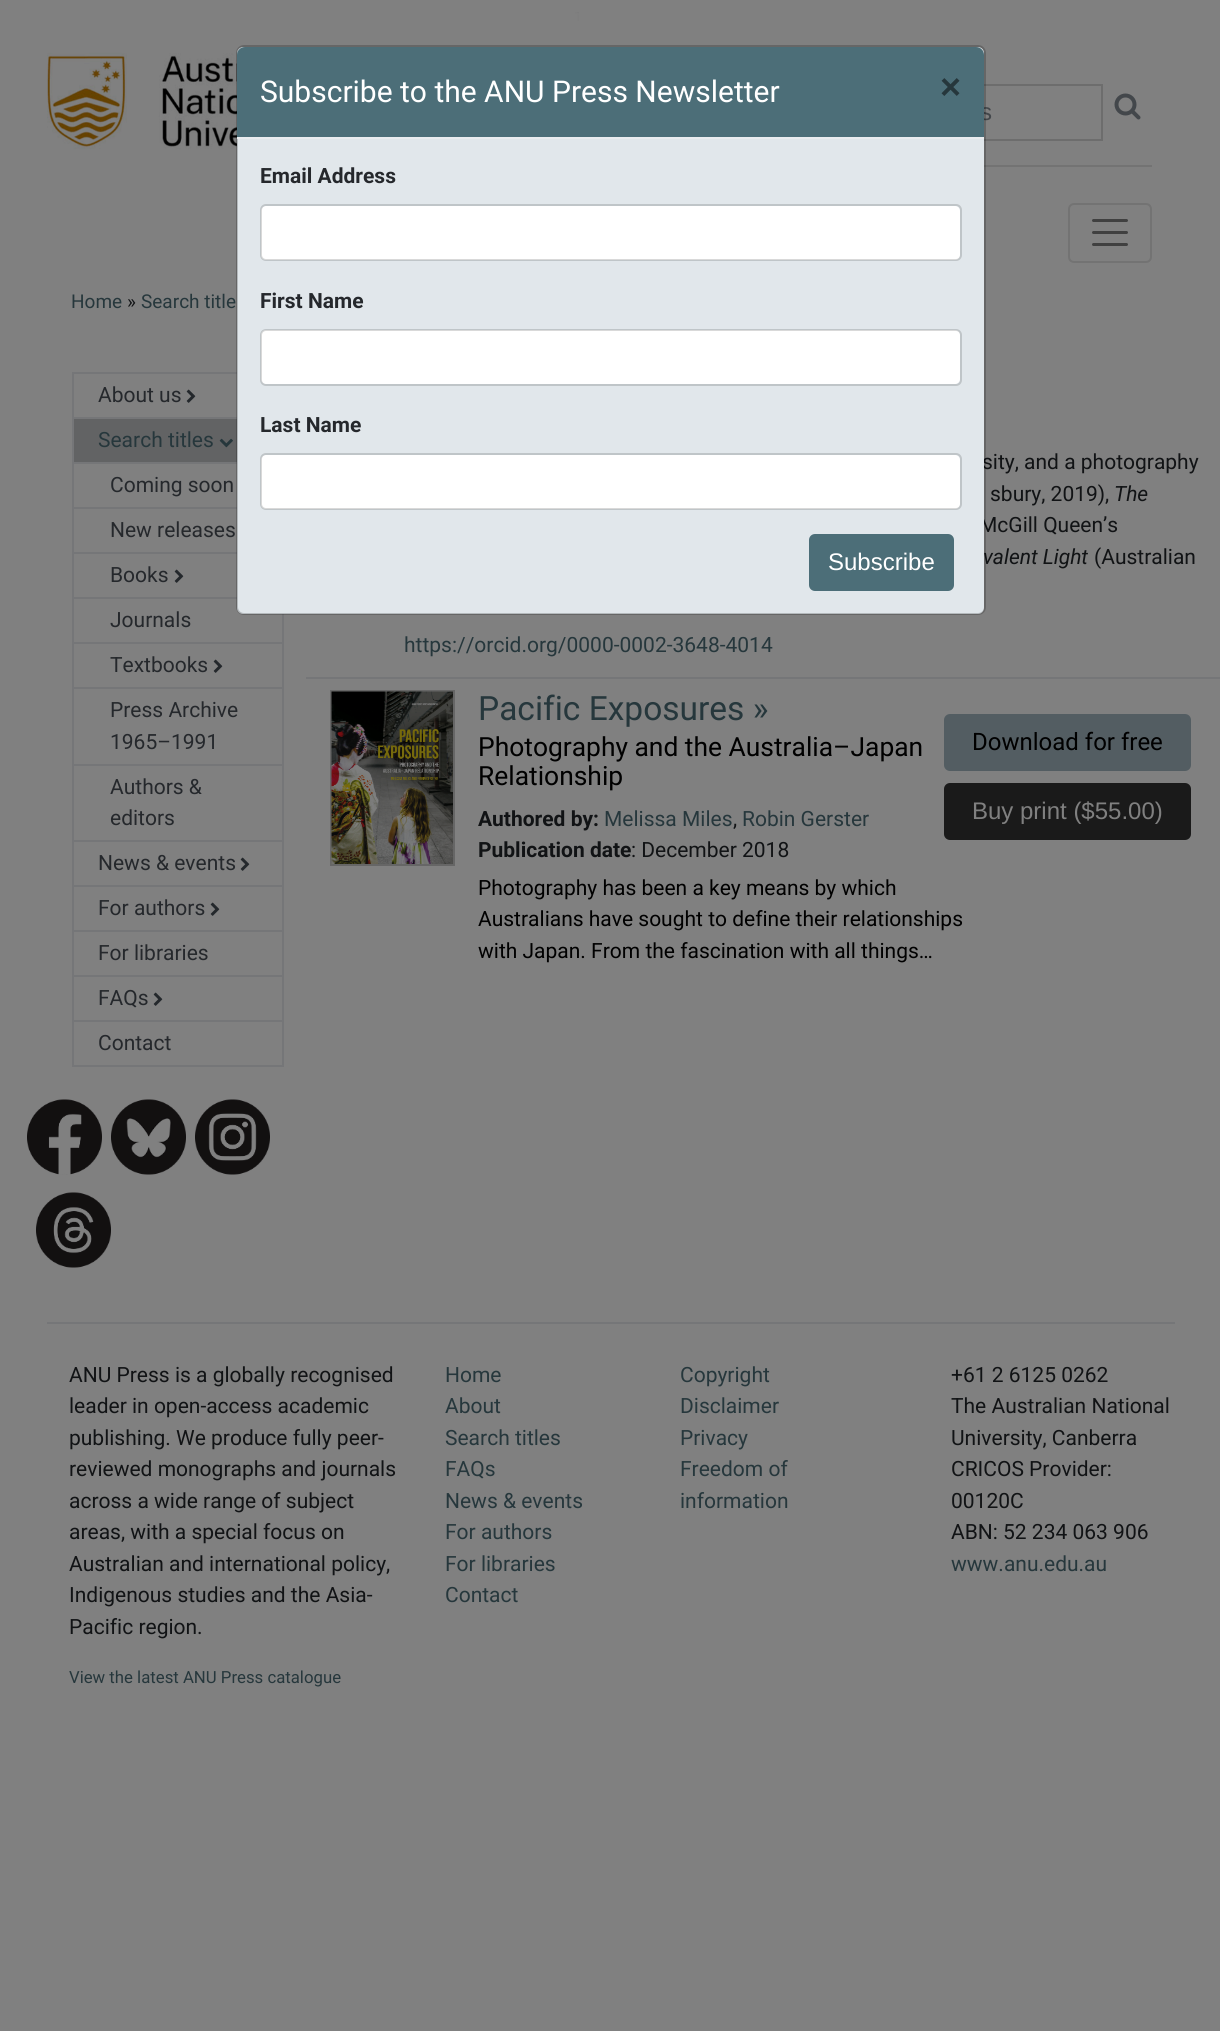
import math
import cairocffi as cairo

surface = cairo.ImageSurface(cairo.FORMAT_RGB24, 1220, 2031)
cr = cairo.Context(surface)
options = cairo.FontOptions()
options.set_hint_metrics(cairo.HINT_METRICS_OFF)
options.set_hint_style(cairo.HINT_STYLE_NONE)
cr.set_font_options(options)
cr.set_miter_limit(4)


def use_color(code):
    cr.set_source_rgb(*(v / 255 for v in bytes.fromhex(code[-6:])))


def round_rect(x, y, w, h, r):
    cr.new_sub_path()
    for i, (u, v) in enumerate([(x + w - r, y + h - r), (x + r, y + h - r), (x + r, y + r), (x + w - r, y + r)]):
        cr.arc(u, v, r, i * math.pi / 2, (i + 1) * math.pi / 2)
    cr.close_path()


def picture(path, x, y, w, h):
    cr.save()
    cr.set_source_surface(cairo.ImageSurface.create_from_png(path), x, y)
    cr.rectangle(x, y, w, h)
    cr.fill()
    cr.restore()


use_color("#808080")
cr.paint()
picture("img1.png", 47, 12, 532, 140)
cr.rectangle(772, 85, 330, 55)
use_color("#6d6d6d")
cr.stroke()
cr.select_font_face("Liberation Sans")
cr.set_font_size(24)
use_color("#43474b")
cr.move_to(980, 120)
cr.show_text("s")
cr.rectangle(73, 373, 210, 693)
use_color("#757678")
cr.stroke()
cr.select_font_face("Roboto")
cr.set_font_size(21)
use_color("#111315")
cr.move_to(982, 469)
cr.show_text("sity, and a photography")
cr.move_to(979, 532)
cr.show_text("McGill Queen’s")
use_color("#e1e7eb")
round_rect(237, 47, 747, 567, 6)
cr.fill()
use_color("#737373")
cr.rectangle(984, 165, 168, 2)
cr.fill()
use_color("#757678")
cr.rectangle(74, 417, 163, 2)
cr.fill()
use_color("#626364")
cr.rectangle(74, 419, 163, 43)
cr.fill()
use_color("#757678")
cr.rectangle(74, 462, 163, 2)
cr.fill()
cr.rectangle(74, 507, 163, 2)
cr.fill()
cr.rectangle(74, 552, 163, 2)
cr.fill()
cr.rectangle(74, 597, 163, 2)
cr.fill()
cr.select_font_face("Roboto", cairo.FONT_SLANT_ITALIC)
use_color("#111315")
cr.move_to(983, 564)
cr.show_text("valent Light")
round_rect(237, 46, 748, 568, 7)
cr.set_source_rgba(0, 0, 0, 0.2)
cr.stroke()
use_color("#4c6e78")
cr.new_path()
cr.move_to(245, 47)
cr.line_to(976, 47)
cr.curve_to(980.5, 47, 984, 50.5, 984, 55)
cr.line_to(984, 138)
cr.line_to(237, 138)
cr.line_to(237, 55)
cr.curve_to(237, 50.5, 240.5, 47, 245, 47)
cr.close_path()
cr.fill()
use_color("#e9ecef")
cr.rectangle(237, 137, 747, 2)
cr.fill()
cr.select_font_face("Roboto")
cr.set_font_size(30)
use_color("#ffffff")
cr.move_to(260, 102)
cr.show_text("Subscribe to the ANU Press Newsletter")
cr.select_font_face("Liberation Sans", cairo.FONT_SLANT_NORMAL, cairo.FONT_WEIGHT_BOLD)
cr.set_font_size(36)
use_color("#26373c")
cr.move_to(940, 99)
cr.show_text("×")
cr.select_font_face("Roboto", cairo.FONT_SLANT_NORMAL, cairo.FONT_WEIGHT_BOLD)
cr.set_font_size(21)
use_color("#25282c")
cr.move_to(260, 183)
cr.show_text("Email Address")
use_color("#ffffff")
round_rect(261, 206, 699, 54, 5)
cr.fill()
round_rect(261, 205, 700, 55, 5)
cr.set_source_rgba(0, 0, 0, 0.15)
cr.stroke()
use_color("#25282c")
cr.move_to(260, 308)
cr.show_text("First Name")
use_color("#ffffff")
round_rect(261, 330, 699, 54, 5)
cr.fill()
round_rect(261, 330, 700, 55, 5)
cr.set_source_rgba(0, 0, 0, 0.15)
cr.stroke()
use_color("#25282c")
cr.move_to(260, 432)
cr.show_text("Last Name")
use_color("#ffffff")
round_rect(261, 455, 699, 54, 5)
cr.fill()
round_rect(261, 454, 700, 55, 5)
cr.set_source_rgba(0, 0, 0, 0.15)
cr.stroke()
use_color("#4c6e78")
round_rect(810, 535, 143, 55, 5)
cr.fill_preserve()
cr.stroke()
cr.select_font_face("Liberation Sans")
cr.set_font_size(24)
use_color("#ffffff")
cr.move_to(828, 570)
cr.show_text("Subscribe")
picture("img2.png", 1114, 93, 27, 27)
round_rect(1069, 204, 82, 58, 5)
use_color("#737373")
cr.stroke()
cr.new_path()
cr.move_to(1093.5, 220.5)
cr.line_to(1126.5, 220.5)
cr.move_to(1093.5, 232.5)
cr.line_to(1126.5, 232.5)
cr.move_to(1093.5, 244.5)
cr.line_to(1126.5, 244.5)
use_color("#404040")
cr.set_line_width(3)
cr.set_line_cap(cairo.LINE_CAP_ROUND)
cr.stroke()
cr.select_font_face("Roboto")
cr.set_font_size(19)
use_color("#26373c")
cr.move_to(71, 308)
cr.show_text("Home")
use_color("#111315")
cr.move_to(127, 308)
cr.show_text("»")
use_color("#26373c")
cr.move_to(141, 308)
cr.show_text("Search title")
cr.set_font_size(21)
use_color("#25282c")
cr.move_to(98, 402)
cr.show_text("About us")
picture("img3.png", 186, 389, 10, 14)
use_color("#26373c")
cr.move_to(98, 447)
cr.show_text("Search titles")
picture("img4.png", 219, 438, 14, 10)
use_color("#25282c")
cr.move_to(110, 492)
cr.show_text("Coming soon")
cr.move_to(110, 537)
cr.show_text("New releases")
cr.move_to(110, 582)
cr.show_text("Books")
picture("img3.png", 174, 569, 10, 14)
use_color("#757678")
cr.rectangle(74, 642, 208, 2)
cr.fill()
use_color("#25282c")
cr.move_to(110, 627)
cr.show_text("Journals")
use_color("#757678")
cr.rectangle(74, 687, 208, 2)
cr.fill()
use_color("#25282c")
cr.move_to(110, 672)
cr.show_text("Textbooks")
picture("img3.png", 213, 659, 10, 14)
use_color("#757678")
cr.rectangle(74, 764, 208, 2)
cr.fill()
use_color("#25282c")
cr.move_to(110, 717)
cr.show_text("Press Archive")
cr.move_to(110, 749)
cr.show_text("1965–1991")
use_color("#757678")
cr.rectangle(74, 840, 208, 2)
cr.fill()
use_color("#25282c")
cr.move_to(110, 794)
cr.show_text("Authors &")
cr.move_to(110, 825)
cr.show_text("editors")
use_color("#757678")
cr.rectangle(74, 885, 208, 2)
cr.fill()
use_color("#25282c")
cr.move_to(98, 870)
cr.show_text("News & events")
picture("img3.png", 240, 857, 10, 14)
use_color("#757678")
cr.rectangle(74, 930, 208, 2)
cr.fill()
use_color("#25282c")
cr.move_to(98, 915)
cr.show_text("For authors")
picture("img3.png", 210, 902, 10, 14)
use_color("#757678")
cr.rectangle(74, 975, 208, 2)
cr.fill()
use_color("#25282c")
cr.move_to(98, 960)
cr.show_text("For libraries")
use_color("#757678")
cr.rectangle(74, 1020, 208, 2)
cr.fill()
use_color("#25282c")
cr.move_to(98, 1005)
cr.show_text("FAQs")
picture("img3.png", 153, 992, 10, 14)
cr.move_to(98, 1050)
cr.show_text("Contact")
picture("img5.png", 27, 1099, 75, 76)
picture("img6.png", 111, 1099, 75, 76)
picture("img7.png", 195, 1099, 75, 76)
picture("img8.png", 36, 1192, 75, 76)
use_color("#111315")
cr.move_to(990, 501)
cr.show_text("sbury, 2019),")
cr.select_font_face("Roboto", cairo.FONT_SLANT_ITALIC)
cr.move_to(1114, 501)
cr.show_text("The")
cr.select_font_face("Roboto")
cr.move_to(1094, 564)
cr.show_text("(Australian")
use_color("#26373c")
cr.move_to(404, 652)
cr.show_text("https://orcid.org/0000-0002-3648-4014")
use_color("#757678")
cr.rectangle(306, 677, 914, 2)
cr.fill()
cr.rectangle(331, 691, 123, 174)
use_color("#666666")
cr.set_line_width(2)
cr.set_line_cap(cairo.LINE_CAP_BUTT)
cr.stroke()
picture("img9.png", 331, 691, 122, 173)
cr.set_font_size(33.5)
use_color("#26373c")
cr.move_to(478, 720)
cr.show_text("Pacific Exposures »")
cr.set_font_size(26.4)
use_color("#000000")
cr.move_to(478, 756)
cr.show_text("Photography and the Australia–Japan")
cr.move_to(478, 785)
cr.show_text("Relationship")
cr.select_font_face("Roboto", cairo.FONT_SLANT_NORMAL, cairo.FONT_WEIGHT_BOLD)
cr.set_font_size(21)
use_color("#111315")
cr.move_to(478, 826)
cr.show_text("Authored by:")
cr.select_font_face("Roboto")
use_color("#26373c")
cr.move_to(604, 826)
cr.show_text("Melissa Miles")
use_color("#111315")
cr.move_to(733, 826)
cr.show_text(",")
use_color("#26373c")
cr.move_to(742, 826)
cr.show_text("Robin Gerster")
cr.select_font_face("Roboto", cairo.FONT_SLANT_NORMAL, cairo.FONT_WEIGHT_BOLD)
use_color("#111315")
cr.move_to(478, 857)
cr.show_text("Publication date")
cr.select_font_face("Roboto")
cr.move_to(631, 857)
cr.show_text(": December 2018")
use_color("#000000")
cr.move_to(478, 895)
cr.show_text("Photography has been a key means by which")
cr.move_to(478, 926)
cr.show_text("Australians have sought to define their relationships")
cr.move_to(478, 958)
cr.show_text("with Japan. From the fascination with all things…")
use_color("#535d62")
round_rect(944, 714, 247, 57, 6)
cr.fill()
cr.set_font_size(24)
use_color("#000000")
cr.move_to(972, 750)
cr.show_text("Download for free")
use_color("#1a1a1a")
round_rect(944, 783, 247, 57, 6)
cr.fill()
cr.select_font_face("Liberation Sans")
use_color("#808080")
cr.move_to(972, 819)
cr.show_text("Buy print ($55.00)")
use_color("#757678")
cr.rectangle(47, 1322, 1128, 2)
cr.fill()
cr.select_font_face("Roboto")
cr.set_font_size(21)
use_color("#111315")
cr.move_to(69, 1382)
cr.show_text("ANU Press is a globally recognised")
cr.move_to(69, 1413)
cr.show_text("leader in open-access academic")
cr.move_to(69, 1445)
cr.show_text("publishing. We produce fully peer-")
cr.move_to(69, 1476)
cr.show_text("reviewed monographs and journals")
cr.move_to(69, 1508)
cr.show_text("across a wide range of subject")
cr.move_to(69, 1539)
cr.show_text("areas, with a special focus on")
cr.move_to(69, 1571)
cr.show_text("Australian and international policy,")
cr.move_to(69, 1602)
cr.show_text("Indigenous studies and the Asia-")
cr.move_to(69, 1634)
cr.show_text("Pacific region.")
cr.set_font_size(16.75)
use_color("#26373c")
cr.move_to(69, 1683)
cr.show_text("View the latest ANU Press catalogue")
cr.set_font_size(21)
cr.move_to(445, 1382)
cr.show_text("Home")
cr.move_to(445, 1413)
cr.show_text("About")
cr.move_to(445, 1445)
cr.show_text("Search titles")
cr.move_to(445, 1476)
cr.show_text("FAQs")
cr.move_to(445, 1508)
cr.show_text("News & events")
cr.move_to(445, 1539)
cr.show_text("For authors")
cr.move_to(445, 1571)
cr.show_text("For libraries")
cr.move_to(445, 1602)
cr.show_text("Contact")
cr.move_to(680, 1382)
cr.show_text("Copyright")
cr.move_to(680, 1413)
cr.show_text("Disclaimer")
cr.move_to(680, 1445)
cr.show_text("Privacy")
cr.move_to(680, 1476)
cr.show_text("Freedom of")
cr.move_to(680, 1508)
cr.show_text("information")
use_color("#111315")
cr.move_to(951, 1382)
cr.show_text("+61 2 6125 0262")
cr.move_to(951, 1413)
cr.show_text("The Australian National")
cr.move_to(951, 1445)
cr.show_text("University, Canberra")
cr.move_to(951, 1476)
cr.show_text("CRICOS Provider:")
cr.move_to(951, 1508)
cr.show_text("00120C")
cr.move_to(951, 1539)
cr.show_text("ABN: 52 234 063 906")
use_color("#26373c")
cr.move_to(951, 1571)
cr.show_text("www.anu.edu.au")
surface.write_to_png("result.png")
